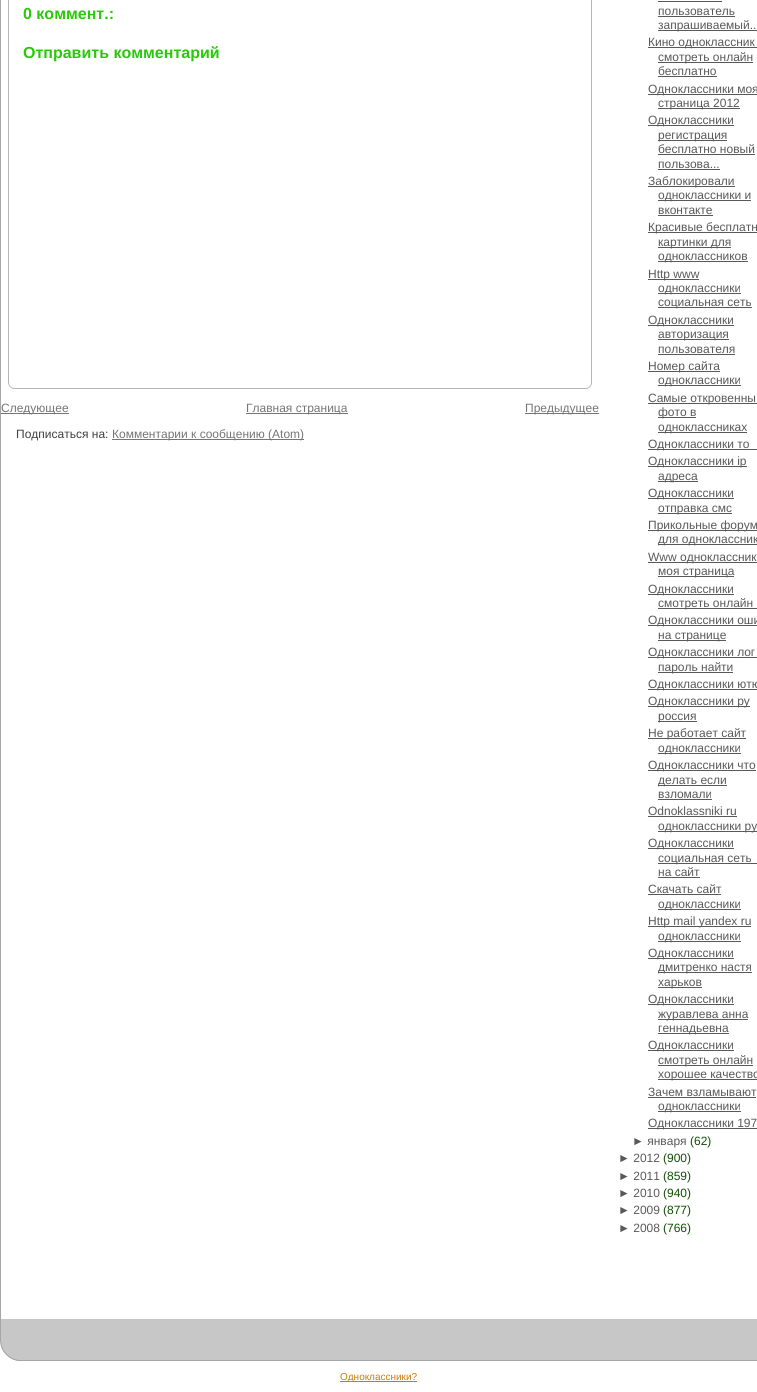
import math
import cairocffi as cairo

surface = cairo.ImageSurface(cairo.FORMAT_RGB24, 757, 1392)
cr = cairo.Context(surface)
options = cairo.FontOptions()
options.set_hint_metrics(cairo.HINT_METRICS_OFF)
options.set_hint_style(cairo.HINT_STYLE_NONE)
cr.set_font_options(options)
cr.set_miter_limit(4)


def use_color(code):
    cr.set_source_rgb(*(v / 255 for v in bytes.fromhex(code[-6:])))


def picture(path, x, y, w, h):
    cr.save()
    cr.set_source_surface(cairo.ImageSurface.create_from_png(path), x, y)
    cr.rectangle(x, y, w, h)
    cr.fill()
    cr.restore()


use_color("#ffffff")
cr.paint()
use_color("#a6a6a6")
cr.rectangle(0, 0, 1, 1340)
cr.fill()
use_color("#b5b5b5")
cr.rectangle(8, 0, 1, 382)
cr.fill()
cr.select_font_face("Liberation Sans", cairo.FONT_SLANT_NORMAL, cairo.FONT_WEIGHT_BOLD)
cr.set_font_size(16)
use_color("#29c809")
cr.move_to(23, 19)
cr.show_text("0 коммент.:")
cr.move_to(23, 58)
cr.show_text("Отправить комментарий")
use_color("#b5b5b5")
cr.rectangle(591, 0, 1, 382)
cr.fill()
picture("img1.png", 8, 382, 7, 7)
cr.rectangle(15, 388, 570, 1)
cr.fill()
picture("img2.png", 585, 382, 7, 7)
use_color("#757575")
cr.rectangle(1, 413, 68, 1)
cr.fill()
cr.select_font_face("Liberation Sans")
cr.set_font_size(12)
cr.move_to(1, 412)
cr.show_text("Следующее")
cr.rectangle(246, 413, 102, 1)
cr.fill()
cr.move_to(246, 412)
cr.show_text("Главная страница")
cr.rectangle(525, 413, 74, 1)
cr.fill()
cr.move_to(525, 412)
cr.show_text("Предыдущее")
use_color("#404040")
cr.move_to(16, 438)
cr.show_text("Подписаться на:")
use_color("#757575")
cr.rectangle(112, 439, 192, 1)
cr.fill()
cr.move_to(112, 438)
cr.show_text("Комментарии к сообщению (Atom)")
use_color("#595959")
cr.move_to(658, 15)
cr.show_text("пользователь")
cr.rectangle(658, 1, 64, 1)
cr.fill()
cr.rectangle(658, 16, 77, 1)
cr.fill()
cr.rectangle(658, 30, 99, 1)
cr.fill()
cr.move_to(658, 29)
cr.show_text("запрашиваемый..")
cr.rectangle(648, 47, 109, 1)
cr.fill()
cr.move_to(648, 46)
cr.show_text("Кино одноклассник")
cr.rectangle(658, 62, 95, 1)
cr.fill()
cr.move_to(658, 61)
cr.show_text("смотреть онлайн")
cr.move_to(658, 75)
cr.show_text("бесплатно")
cr.rectangle(658, 76, 59, 1)
cr.fill()
cr.rectangle(648, 94, 109, 1)
cr.fill()
cr.move_to(648, 93)
cr.show_text("Одноклассники моя")
cr.rectangle(658, 108, 82, 1)
cr.fill()
cr.move_to(658, 107)
cr.show_text("страница 2012")
cr.rectangle(648, 125, 86, 1)
cr.fill()
cr.move_to(648, 124)
cr.show_text("Одноклассники")
cr.rectangle(658, 140, 69, 1)
cr.fill()
cr.move_to(658, 139)
cr.show_text("регистрация")
cr.move_to(658, 153)
cr.show_text("бесплатно новый")
cr.rectangle(658, 154, 97, 1)
cr.fill()
cr.move_to(658, 168)
cr.show_text("пользова...")
cr.rectangle(658, 169, 62, 1)
cr.fill()
cr.rectangle(648, 186, 87, 1)
cr.fill()
cr.move_to(648, 185)
cr.show_text("Заблокировали")
cr.rectangle(658, 200, 93, 1)
cr.fill()
cr.move_to(658, 199)
cr.show_text("одноклассники и")
cr.move_to(658, 214)
cr.show_text("вконтакте")
cr.rectangle(658, 215, 55, 1)
cr.fill()
cr.rectangle(648, 232, 109, 1)
cr.fill()
cr.move_to(648, 231)
cr.show_text("Красивые бесплатн")
cr.rectangle(658, 247, 73, 1)
cr.fill()
cr.move_to(658, 246)
cr.show_text("картинки для")
cr.rectangle(658, 261, 90, 1)
cr.fill()
cr.move_to(658, 260)
cr.show_text("одноклассников")
cr.rectangle(648, 279, 51, 1)
cr.fill()
cr.move_to(648, 278)
cr.show_text("Http www")
cr.rectangle(658, 293, 83, 1)
cr.fill()
cr.move_to(658, 292)
cr.show_text("одноклассники")
cr.rectangle(658, 307, 94, 1)
cr.fill()
cr.move_to(658, 306)
cr.show_text("социальная сеть")
cr.rectangle(648, 325, 86, 1)
cr.fill()
cr.move_to(648, 324)
cr.show_text("Одноклассники")
cr.rectangle(658, 339, 71, 1)
cr.fill()
cr.move_to(658, 338)
cr.show_text("авторизация")
cr.move_to(658, 353)
cr.show_text("пользователя")
cr.rectangle(658, 354, 77, 1)
cr.fill()
cr.rectangle(648, 371, 72, 1)
cr.fill()
cr.move_to(648, 370)
cr.show_text("Номер сайта")
cr.rectangle(658, 385, 83, 1)
cr.fill()
cr.move_to(658, 384)
cr.show_text("одноклассники")
cr.rectangle(648, 403, 109, 1)
cr.fill()
cr.move_to(648, 402)
cr.show_text("Самые откровенны")
cr.rectangle(658, 417, 38, 1)
cr.fill()
cr.move_to(658, 416)
cr.show_text("фото в")
cr.rectangle(658, 432, 89, 1)
cr.fill()
cr.move_to(658, 431)
cr.show_text("одноклассниках")
cr.rectangle(648, 449, 109, 1)
cr.fill()
cr.move_to(648, 448)
cr.show_text("Одноклассники то")
cr.rectangle(648, 466, 99, 1)
cr.fill()
cr.move_to(648, 465)
cr.show_text("Одноклассники ip")
cr.rectangle(658, 481, 40, 1)
cr.fill()
cr.move_to(658, 480)
cr.show_text("адреса")
cr.rectangle(648, 498, 86, 1)
cr.fill()
cr.move_to(648, 497)
cr.show_text("Одноклассники")
cr.rectangle(658, 513, 74, 1)
cr.fill()
cr.move_to(658, 512)
cr.show_text("отправка смс")
cr.rectangle(648, 530, 109, 1)
cr.fill()
cr.move_to(648, 529)
cr.show_text("Прикольные форум")
cr.rectangle(658, 544, 99, 1)
cr.fill()
cr.move_to(658, 543)
cr.show_text("для одноклассник")
cr.rectangle(648, 562, 109, 1)
cr.fill()
cr.move_to(648, 561)
cr.show_text("Www одноклассник")
cr.rectangle(658, 576, 76, 1)
cr.fill()
cr.move_to(658, 575)
cr.show_text("моя страница")
cr.rectangle(648, 594, 86, 1)
cr.fill()
cr.move_to(648, 593)
cr.show_text("Одноклассники")
cr.rectangle(658, 608, 99, 1)
cr.fill()
cr.move_to(658, 607)
cr.show_text("смотреть онлайн")
cr.rectangle(648, 625, 109, 1)
cr.fill()
cr.move_to(648, 624)
cr.show_text("Одноклассники оши")
cr.rectangle(658, 640, 68, 1)
cr.fill()
cr.move_to(658, 639)
cr.show_text("на странице")
cr.rectangle(648, 657, 109, 1)
cr.fill()
cr.move_to(648, 656)
cr.show_text("Одноклассники лог")
cr.rectangle(658, 672, 75, 1)
cr.fill()
cr.move_to(658, 671)
cr.show_text("пароль найти")
cr.rectangle(648, 689, 109, 1)
cr.fill()
cr.move_to(648, 688)
cr.show_text("Одноклассники ютю")
cr.rectangle(648, 706, 102, 1)
cr.fill()
cr.move_to(648, 705)
cr.show_text("Одноклассники ру")
cr.rectangle(658, 721, 39, 1)
cr.fill()
cr.move_to(658, 720)
cr.show_text("россия")
cr.rectangle(648, 738, 98, 1)
cr.fill()
cr.move_to(648, 737)
cr.show_text("Не работает сайт")
cr.rectangle(658, 753, 83, 1)
cr.fill()
cr.move_to(658, 752)
cr.show_text("одноклассники")
cr.rectangle(648, 770, 108, 1)
cr.fill()
cr.move_to(648, 769)
cr.show_text("Одноклассники что")
cr.rectangle(658, 785, 69, 1)
cr.fill()
cr.move_to(658, 784)
cr.show_text("делать если")
cr.move_to(658, 798)
cr.show_text("взломали")
cr.rectangle(658, 799, 54, 1)
cr.fill()
cr.move_to(648, 815)
cr.show_text("Odnoklassniki ru")
cr.rectangle(648, 816, 89, 1)
cr.fill()
cr.rectangle(658, 831, 99, 1)
cr.fill()
cr.move_to(658, 830)
cr.show_text("одноклассники ру")
cr.rectangle(648, 848, 86, 1)
cr.fill()
cr.move_to(648, 847)
cr.show_text("Одноклассники")
cr.rectangle(658, 863, 99, 1)
cr.fill()
cr.move_to(658, 862)
cr.show_text("социальная сеть")
cr.move_to(658, 876)
cr.show_text("на сайт")
cr.rectangle(658, 877, 42, 1)
cr.fill()
cr.move_to(648, 893)
cr.show_text("Скачать сайт")
cr.rectangle(648, 894, 73, 1)
cr.fill()
cr.rectangle(658, 909, 83, 1)
cr.fill()
cr.move_to(658, 908)
cr.show_text("одноклассники")
cr.rectangle(648, 926, 103, 1)
cr.fill()
cr.move_to(648, 925)
cr.show_text("Http mail yandex ru")
cr.rectangle(658, 941, 83, 1)
cr.fill()
cr.move_to(658, 940)
cr.show_text("одноклассники")
cr.rectangle(648, 958, 86, 1)
cr.fill()
cr.move_to(648, 957)
cr.show_text("Одноклассники")
cr.rectangle(658, 972, 94, 1)
cr.fill()
cr.move_to(658, 971)
cr.show_text("дмитренко настя")
cr.rectangle(658, 987, 44, 1)
cr.fill()
cr.move_to(658, 986)
cr.show_text("харьков")
cr.rectangle(648, 1004, 86, 1)
cr.fill()
cr.move_to(648, 1003)
cr.show_text("Одноклассники")
cr.rectangle(658, 1019, 90, 1)
cr.fill()
cr.move_to(658, 1018)
cr.show_text("журавлева анна")
cr.rectangle(658, 1033, 71, 1)
cr.fill()
cr.move_to(658, 1032)
cr.show_text("геннадьевна")
cr.rectangle(648, 1050, 86, 1)
cr.fill()
cr.move_to(648, 1049)
cr.show_text("Одноклассники")
cr.rectangle(658, 1065, 95, 1)
cr.fill()
cr.move_to(658, 1064)
cr.show_text("смотреть онлайн")
cr.rectangle(658, 1079, 99, 1)
cr.fill()
cr.move_to(658, 1078)
cr.show_text("хорошее качество")
cr.move_to(648, 1096)
cr.show_text("Зачем взламывают")
cr.rectangle(648, 1097, 108, 1)
cr.fill()
cr.rectangle(658, 1111, 83, 1)
cr.fill()
cr.move_to(658, 1110)
cr.show_text("одноклассники")
cr.rectangle(648, 1128, 109, 1)
cr.fill()
cr.move_to(648, 1127)
cr.show_text("Одноклассники 197")
cr.move_to(632, 1145)
cr.show_text("► января")
use_color("#104e04")
cr.move_to(690, 1145)
cr.show_text("(62)")
use_color("#595959")
cr.move_to(618, 1162)
cr.show_text("► 2012")
use_color("#104e04")
cr.move_to(663, 1162)
cr.show_text("(900)")
use_color("#595959")
cr.move_to(618, 1180)
cr.show_text("► 2011")
use_color("#104e04")
cr.move_to(663, 1180)
cr.show_text("(859)")
use_color("#595959")
cr.move_to(618, 1197)
cr.show_text("► 2010")
use_color("#104e04")
cr.move_to(663, 1197)
cr.show_text("(940)")
use_color("#595959")
cr.move_to(618, 1214)
cr.show_text("► 2009")
use_color("#104e04")
cr.move_to(663, 1214)
cr.show_text("(877)")
use_color("#595959")
cr.move_to(618, 1232)
cr.show_text("► 2008")
use_color("#104e04")
cr.move_to(663, 1232)
cr.show_text("(766)")
picture("img4.png", 0, 1340, 21, 21)
picture("img3.png", 1, 1319, 756, 41)
use_color("#a6a6a6")
cr.rectangle(21, 1360, 736, 1)
cr.fill()
use_color("#ca7d02")
cr.rectangle(340, 1381, 77, 1)
cr.fill()
cr.set_font_size(10)
cr.move_to(340, 1380)
cr.show_text("Одноклассники?")
surface.write_to_png("result.png")
